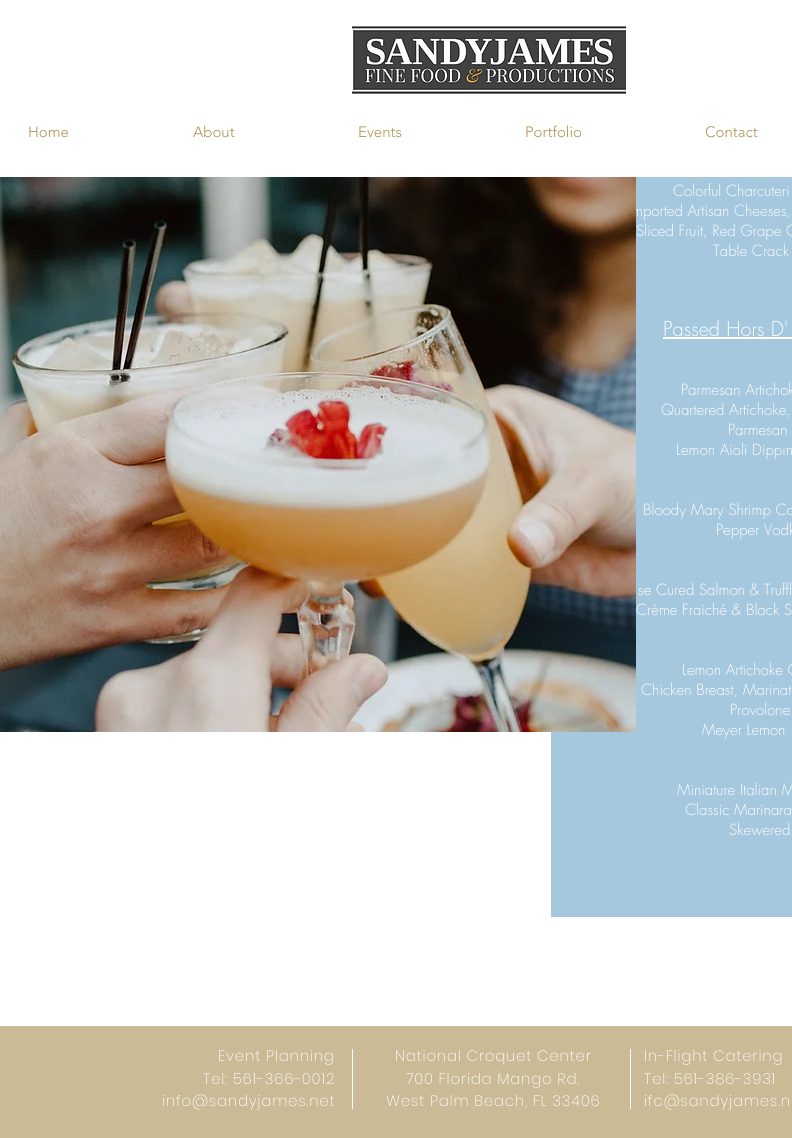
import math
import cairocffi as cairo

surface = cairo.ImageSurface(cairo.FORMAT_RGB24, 792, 1138)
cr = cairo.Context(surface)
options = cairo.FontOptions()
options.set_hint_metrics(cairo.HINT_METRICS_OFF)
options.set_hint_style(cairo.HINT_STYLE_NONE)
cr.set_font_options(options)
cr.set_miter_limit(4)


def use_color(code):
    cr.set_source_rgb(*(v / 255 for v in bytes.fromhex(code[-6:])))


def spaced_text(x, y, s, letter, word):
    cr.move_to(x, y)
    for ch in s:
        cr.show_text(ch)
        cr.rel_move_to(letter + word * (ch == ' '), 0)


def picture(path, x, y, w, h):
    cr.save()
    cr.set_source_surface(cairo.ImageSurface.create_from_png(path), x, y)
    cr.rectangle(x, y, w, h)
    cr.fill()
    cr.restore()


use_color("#ffffff")
cr.paint()
picture("img1.png", 352, 26, 274, 68)
cr.select_font_face("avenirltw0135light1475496 Light")
cr.set_font_size(15)
use_color("#af9453")
cr.move_to(28, 137)
cr.show_text("Home")
cr.move_to(193, 137)
cr.show_text("About")
cr.move_to(358, 137)
cr.show_text("Events")
cr.move_to(525, 137)
cr.show_text("Portfolio")
cr.move_to(705, 137)
cr.show_text("Contact")
use_color("#a5c8de")
cr.rectangle(551, 177, 241, 740)
cr.fill()
cr.select_font_face("futura Light")
use_color("#ffffff")
cr.move_to(632, 216)
cr.show_text("mported Artisan Cheeses,")
picture("img2.png", 0, 177, 636, 555)
cr.move_to(673, 196)
cr.show_text("Colorful Charcuteri")
cr.move_to(636, 236)
cr.show_text("Sliced Fruit, Red Grape C")
cr.move_to(713, 256)
cr.show_text("Table Crack")
cr.set_font_size(20)
cr.move_to(663, 336)
cr.show_text("Passed Hors D'")
cr.rectangle(663, 337, 129, 2)
cr.fill()
cr.set_font_size(15)
cr.move_to(681, 395)
cr.show_text("Parmesan Artichok")
cr.move_to(661, 415)
cr.show_text("Quartered Artichoke,")
cr.move_to(728, 435)
cr.show_text("Parmesan")
cr.move_to(676, 455)
cr.show_text("Lemon Aioli Dippin")
cr.move_to(643, 515)
cr.show_text("Bloody Mary Shrimp Co")
cr.move_to(716, 535)
cr.show_text("Pepper Vodk")
cr.move_to(638, 595)
cr.show_text("se Cured Salmon & Truffl")
cr.move_to(636, 615)
cr.show_text("Crème Fraiché & Black S")
cr.move_to(682, 675)
cr.show_text("Lemon Artichoke C")
cr.move_to(641, 695)
cr.show_text("Chicken Breast, Marinat")
cr.move_to(730, 715)
cr.show_text("Provolone")
cr.move_to(702, 735)
cr.show_text("Meyer Lemon")
cr.move_to(677, 795)
cr.show_text("Miniature Italian M")
cr.move_to(685, 815)
cr.show_text("Classic Marinara")
cr.move_to(729, 835)
cr.show_text("Skewered")
use_color("#caba95")
cr.rectangle(0, 1026, 792, 112)
cr.fill()
cr.select_font_face("Poppins ExtraLight")
use_color("#ffffff")
spaced_text(218, 1061, "Event Planning", 0.75, 0)
spaced_text(203, 1084, "Tel: 561-366-0012", 0.75, 0)
spaced_text(162, 1106, "info@sandyjames.net", 0.75, 0)
cr.rectangle(352, 1049, 1, 60)
cr.fill()
spaced_text(395, 1061, "National Croquet Center", 0.75, 0)
spaced_text(406, 1084, "700 Florida Mango Rd.", 0.75, 0)
spaced_text(386, 1106, "West Palm Beach, FL 33406", 0.75, 0)
cr.rectangle(630, 1049, 1, 60)
cr.fill()
spaced_text(644, 1061, "In-Flight Catering", 0.75, 0)
spaced_text(644, 1084, "Tel: 561-386-3931", 0.75, 0)
spaced_text(644, 1106, "ifc@sandyjames.n", 0.75, 0)
surface.write_to_png("result.png")
